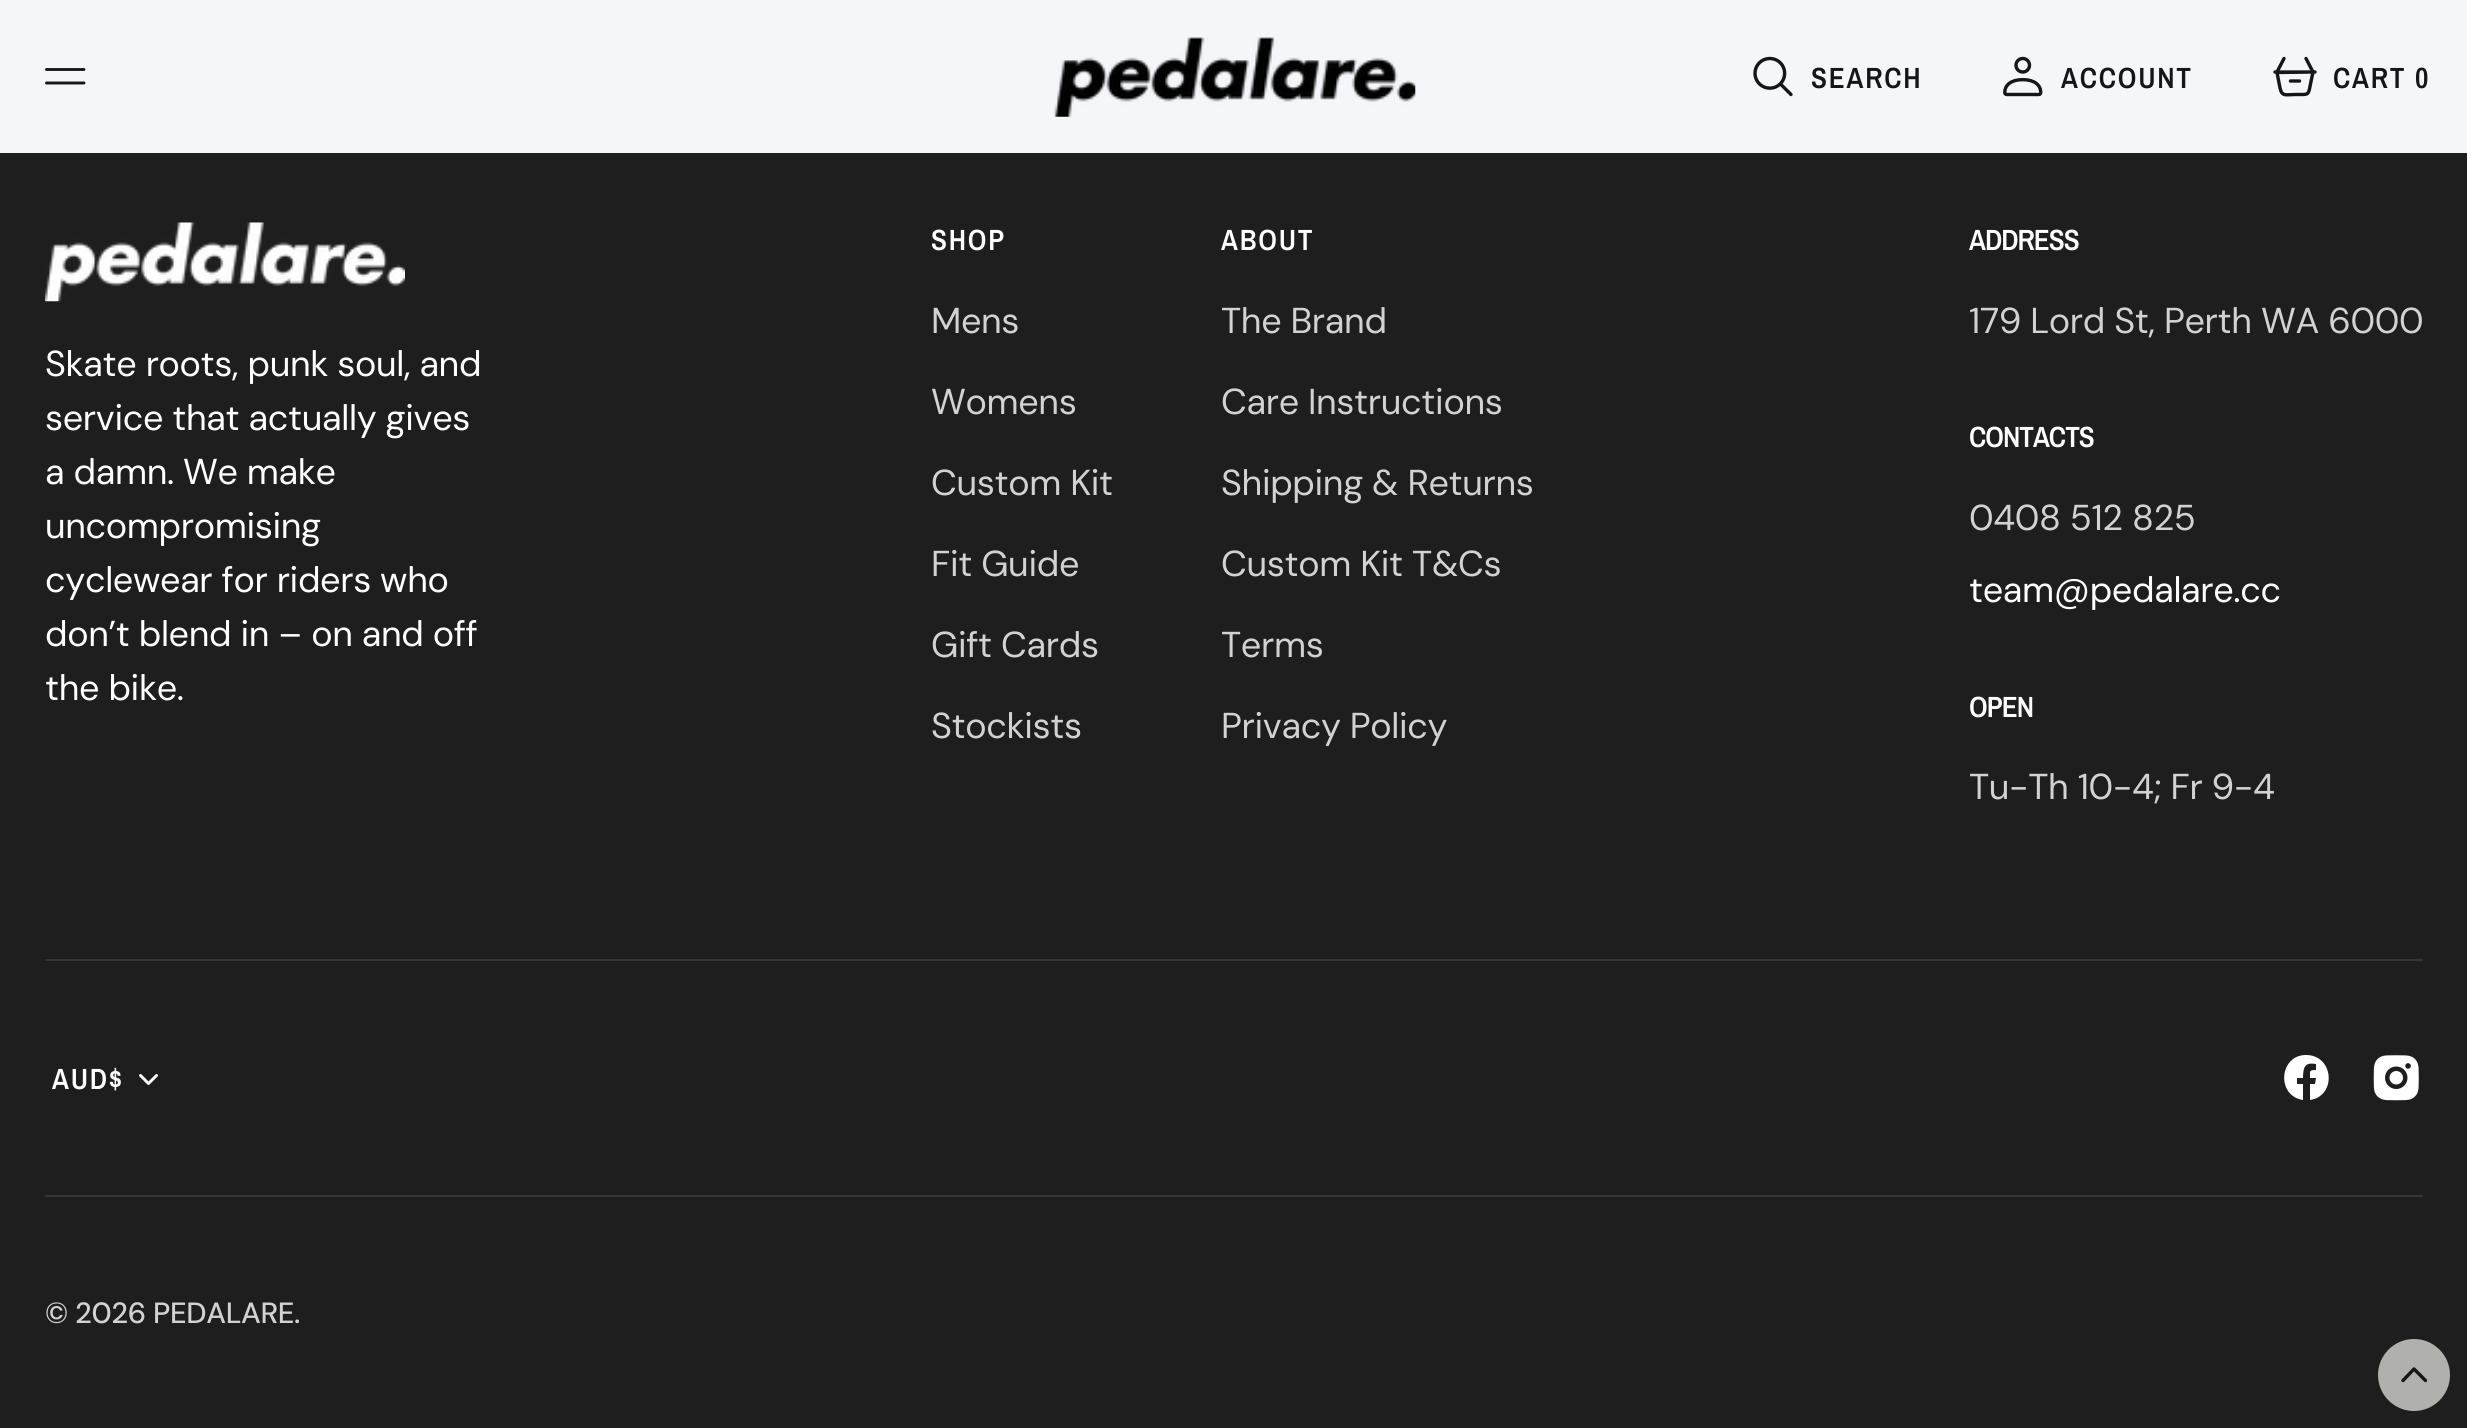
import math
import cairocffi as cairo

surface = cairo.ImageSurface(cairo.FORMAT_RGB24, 2467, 1428)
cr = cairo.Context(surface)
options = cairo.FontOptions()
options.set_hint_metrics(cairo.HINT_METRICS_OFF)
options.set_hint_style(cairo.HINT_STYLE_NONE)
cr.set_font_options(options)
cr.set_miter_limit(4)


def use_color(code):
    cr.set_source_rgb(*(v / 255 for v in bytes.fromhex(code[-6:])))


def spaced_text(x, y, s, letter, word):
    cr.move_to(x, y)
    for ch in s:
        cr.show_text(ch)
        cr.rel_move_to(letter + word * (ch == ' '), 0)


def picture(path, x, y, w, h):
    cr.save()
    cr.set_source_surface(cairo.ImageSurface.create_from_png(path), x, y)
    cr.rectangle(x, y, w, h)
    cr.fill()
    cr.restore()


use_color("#1e1e1e")
cr.paint()
use_color("#f4f6fa")
cr.rectangle(0, 0, 2467, 153)
cr.fill()
cr.new_path()
cr.move_to(46.5, 69.5)
cr.line_to(84, 69.5)
cr.move_to(46.5, 83)
cr.line_to(84, 83)
use_color("#161616")
cr.set_line_width(2.9)
cr.set_line_cap(cairo.LINE_CAP_ROUND)
cr.stroke()
picture("img1.png", 1054, 37, 362, 80)
picture("img2.png", 1753, 56, 40, 41)
cr.select_font_face("Archivo Narrow SemiBold")
cr.set_font_size(29.25)
spaced_text(1811, 88, "SEARCH", 1.75, 0)
picture("img3.png", 2003, 56, 40, 41)
spaced_text(2061, 88, "ACCOUNT", 1.75, 0)
cr.new_path()
cr.move_to(2275, 72)
cr.line_to(2315, 72)
cr.move_to(2277, 72)
cr.line_to(2284, 58.5)
cr.move_to(2306, 58.5)
cr.line_to(2313, 72)
cr.move_to(2290.5, 81)
cr.line_to(2299.5, 81)
cr.move_to(2277, 72.5)
cr.line_to(2280, 88)
cr.curve_to(2282, 97, 2286, 94.5, 2295, 94.5)
cr.curve_to(2310, 94.5, 2308, 96, 2311, 81.5)
cr.line_to(2313, 72)
cr.close_path()
cr.set_line_width(3.4)
cr.stroke()
spaced_text(2333, 88, "CART", 1.75, 0)
spaced_text(2415, 88, "0", 1.75, 0)
picture("img4.png", 45, 222, 360, 80)
cr.select_font_face("DM Sans")
cr.set_font_size(36)
use_color("#ffffff")
spaced_text(45, 376, "Skate roots, punk soul, and", -0.35, 0)
spaced_text(45, 430, "service that actually gives", -0.35, 0)
spaced_text(45, 484, "a damn. We make", -0.35, 0)
spaced_text(45, 538, "uncompromising", -0.35, 0)
spaced_text(45, 592, "cyclewear for riders who", -0.35, 0)
spaced_text(45, 646, "don’t blend in – on and off", -0.35, 0)
spaced_text(45, 700, "the bike.", -0.35, 0)
cr.select_font_face("Archivo Narrow SemiBold")
cr.set_font_size(29.25)
spaced_text(931, 250, "SHOP", 1.75, 0)
cr.select_font_face("DM Sans")
cr.set_font_size(36)
use_color("#d2d2d2")
spaced_text(931, 333, "Mens", -0.35, 0)
spaced_text(931, 414, "Womens", -0.35, 0)
spaced_text(931, 495, "Custom Kit", -0.35, 0)
spaced_text(931, 576, "Fit Guide", -0.35, 0)
spaced_text(931, 657, "Gift Cards", -0.35, 0)
spaced_text(931, 738, "Stockists", -0.35, 0)
cr.select_font_face("Archivo Narrow SemiBold")
cr.set_font_size(29.25)
use_color("#ffffff")
spaced_text(1221, 250, "ABOUT", 1.75, 0)
cr.select_font_face("DM Sans")
cr.set_font_size(36)
use_color("#d2d2d2")
spaced_text(1221, 333, "The Brand", -0.35, 0)
spaced_text(1221, 414, "Care Instructions", -0.35, 0)
spaced_text(1221, 495, "Shipping & Returns", -0.35, 0)
spaced_text(1221, 576, "Custom Kit T&Cs", -0.35, 0)
spaced_text(1221, 657, "Terms", -0.35, 0)
spaced_text(1221, 738, "Privacy Policy", -0.35, 0)
cr.select_font_face("Archivo Narrow SemiBold")
cr.set_font_size(29.25)
use_color("#ffffff")
spaced_text(1969, 250, "ADDRESS", -1, 0)
cr.select_font_face("DM Sans")
cr.set_font_size(36)
use_color("#d2d2d2")
spaced_text(1969, 333, "179 Lord St, Perth WA 6000", -0.35, 0)
cr.select_font_face("Archivo Narrow SemiBold")
cr.set_font_size(29.25)
use_color("#ffffff")
spaced_text(1969, 447, "CONTACTS", -1, 0)
cr.select_font_face("DM Sans")
cr.set_font_size(36)
use_color("#d2d2d2")
spaced_text(1969, 530, "0408 512 825", -0.35, 0)
use_color("#ffffff")
spaced_text(1969, 602, "team@pedalare.cc", -0.35, 0)
cr.select_font_face("Archivo Narrow SemiBold")
cr.set_font_size(29.25)
spaced_text(1969, 717, "OPEN", -1, 0)
cr.select_font_face("DM Sans")
cr.set_font_size(36)
use_color("#d2d2d2")
spaced_text(1969, 799, "Tu-Th 10-4; Fr 9-4", -0.35, 0)
use_color("#353535")
cr.rectangle(45, 959, 2378, 2)
cr.fill()
cr.select_font_face("Archivo Narrow SemiBold")
cr.set_font_size(29.25)
use_color("#ffffff")
spaced_text(52, 1089, "AUD$", 1.75, 0)
cr.new_path()
cr.move_to(140.5, 1075.5)
cr.line_to(148.5, 1083.5)
cr.line_to(156.5, 1075.5)
cr.set_line_width(2.9)
cr.set_line_join(cairo.LINE_JOIN_ROUND)
cr.stroke()
cr.new_path()
cr.move_to(2306, 1055)
cr.curve_to(2279, 1055, 2276, 1096, 2303, 1100)
cr.line_to(2303, 1084)
cr.line_to(2297, 1084)
cr.line_to(2297, 1078)
cr.line_to(2303, 1078)
cr.curve_to(2303, 1067, 2305, 1062, 2316, 1064)
cr.line_to(2316, 1070)
cr.curve_to(2309, 1070, 2310, 1071, 2310, 1078)
cr.line_to(2316, 1078)
cr.line_to(2315, 1084)
cr.line_to(2310, 1084)
cr.line_to(2310, 1100)
cr.curve_to(2337, 1096, 2334, 1055, 2306, 1055)
cr.close_path()
cr.fill()
picture("img5.png", 2373, 1055, 46, 46)
use_color("#353535")
cr.rectangle(45, 1195, 2378, 2)
cr.fill()
cr.select_font_face("DM Sans Medium")
use_color("#d2d2d2")
spaced_text(45, 1323, "© 2026 PEDALARE", -0.35, 0)
spaced_text(294, 1323, ".", -0.35, 0)
use_color("#b0b0ad")
cr.new_path()
cr.arc(2414, 1375, 36, 0, 2 * math.pi)
cr.fill()
cr.new_path()
cr.move_to(2403, 1380.5)
cr.line_to(2414, 1369)
cr.line_to(2425.5, 1380.5)
use_color("#161616")
cr.set_line_width(3.4)
cr.stroke()
surface.write_to_png("result.png")
